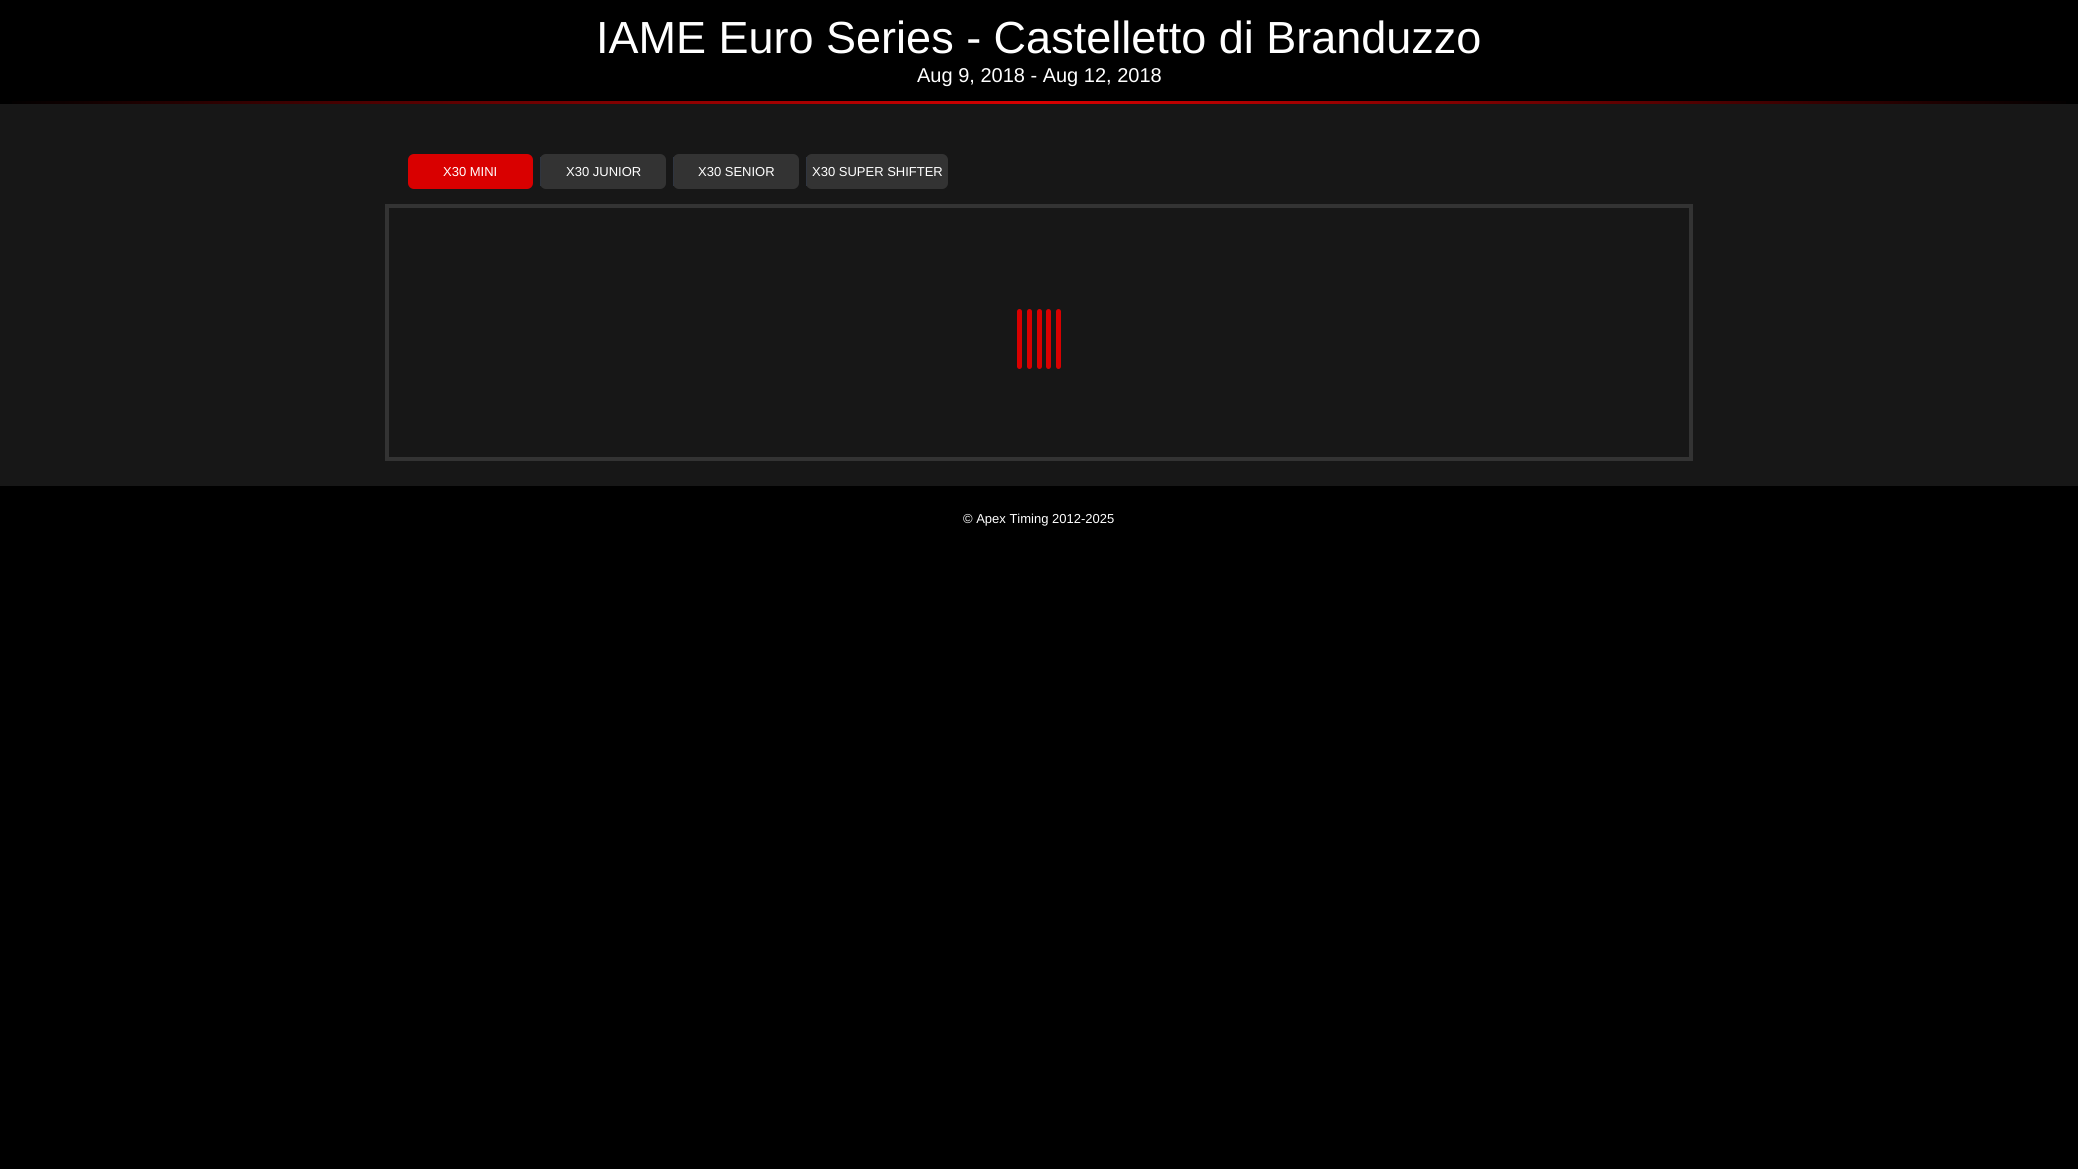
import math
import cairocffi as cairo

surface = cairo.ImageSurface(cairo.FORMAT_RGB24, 2078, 1169)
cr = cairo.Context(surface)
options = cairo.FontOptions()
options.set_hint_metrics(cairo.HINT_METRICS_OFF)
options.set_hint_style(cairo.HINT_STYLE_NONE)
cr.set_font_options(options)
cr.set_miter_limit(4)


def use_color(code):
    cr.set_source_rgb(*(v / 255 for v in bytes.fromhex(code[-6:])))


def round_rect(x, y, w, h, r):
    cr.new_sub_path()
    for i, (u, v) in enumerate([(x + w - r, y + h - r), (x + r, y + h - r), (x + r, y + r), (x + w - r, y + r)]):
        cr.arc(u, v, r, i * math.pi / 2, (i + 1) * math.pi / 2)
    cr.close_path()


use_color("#000000")
cr.paint()
use_color("#171717")
cr.rectangle(0, 104, 2078, 382)
cr.fill()
cr.select_font_face("Liberation Sans")
cr.set_font_size(45)
use_color("#ffffff")
cr.move_to(596, 53)
cr.show_text("IAME Euro Series - Castelletto di Branduzzo")
cr.set_font_size(20)
cr.move_to(917, 82)
cr.show_text("Aug 9, 2018 - Aug 12, 2018")
gradient = cairo.LinearGradient(0, 103, 2078, 102)
gradient.add_color_stop_rgba(0, 0, 0, 0, 1)
gradient.add_color_stop_rgba(0.5, 0.851, 0, 0, 1)
gradient.add_color_stop_rgba(1, 0, 0, 0, 1)
cr.set_source(gradient)
cr.rectangle(12, 101, 2054, 3)
cr.fill()
use_color("#d90000")
round_rect(408, 154, 125, 35, 6)
cr.fill()
cr.set_font_size(13)
use_color("#ffffff")
cr.move_to(443, 176)
cr.show_text("X30 MINI")
use_color("#333333")
round_rect(540, 154, 126, 35, 6)
cr.fill()
use_color("#2f3540")
cr.rectangle(540, 157, 1, 29)
cr.fill()
use_color("#ffffff")
cr.move_to(566, 176)
cr.show_text("X30 JUNIOR")
use_color("#333333")
round_rect(673, 154, 126, 35, 6)
cr.fill()
use_color("#2f3540")
cr.rectangle(673, 157, 1, 29)
cr.fill()
use_color("#ffffff")
cr.move_to(698, 176)
cr.show_text("X30 SENIOR")
use_color("#333333")
round_rect(806, 154, 142, 35, 6)
cr.fill()
use_color("#2f3540")
cr.rectangle(806, 157, 1, 29)
cr.fill()
use_color("#ffffff")
cr.move_to(812, 176)
cr.show_text("X30 SUPER SHIFTER")
cr.rectangle(387, 206, 1304, 253)
use_color("#333333")
cr.set_line_width(4)
cr.stroke()
use_color("#d90000")
round_rect(1017, 309, 5, 60, 2.5)
cr.fill()
round_rect(1027, 309, 5, 60, 2.5)
cr.fill()
round_rect(1037, 309, 5, 60, 2.5)
cr.fill()
round_rect(1046, 309, 5, 60, 2.5)
cr.fill()
round_rect(1056, 309, 5, 60, 2.5)
cr.fill()
use_color("#ffffff")
cr.move_to(963, 523)
cr.show_text("© Apex Timing 2012-2025")
surface.write_to_png("result.png")
